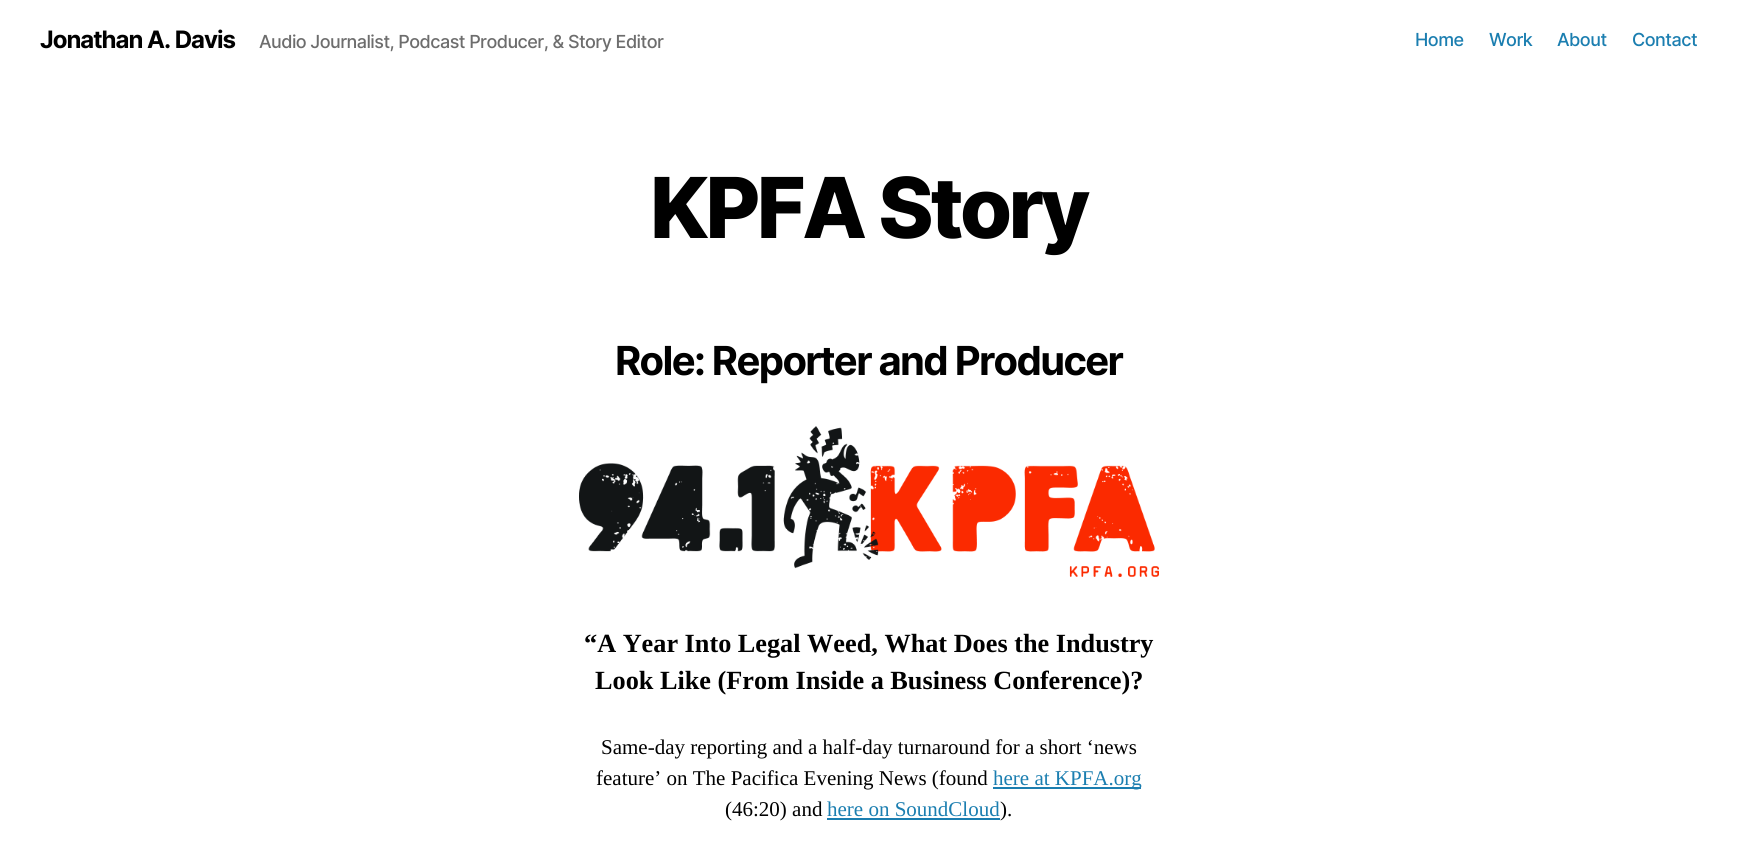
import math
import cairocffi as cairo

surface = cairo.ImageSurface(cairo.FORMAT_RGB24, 1737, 844)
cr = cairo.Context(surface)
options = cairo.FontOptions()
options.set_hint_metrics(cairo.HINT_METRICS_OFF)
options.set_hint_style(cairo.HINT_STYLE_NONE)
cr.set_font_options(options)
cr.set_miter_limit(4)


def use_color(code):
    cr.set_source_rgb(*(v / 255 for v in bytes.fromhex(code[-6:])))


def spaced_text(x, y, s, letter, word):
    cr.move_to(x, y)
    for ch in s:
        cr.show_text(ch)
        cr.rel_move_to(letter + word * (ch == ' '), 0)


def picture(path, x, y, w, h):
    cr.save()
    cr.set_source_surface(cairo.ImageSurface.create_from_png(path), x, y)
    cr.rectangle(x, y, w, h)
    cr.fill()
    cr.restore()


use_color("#ffffff")
cr.paint()
cr.select_font_face("Inter", cairo.FONT_SLANT_NORMAL, cairo.FONT_WEIGHT_BOLD)
cr.set_font_size(24)
use_color("#000000")
spaced_text(40, 48, "Jonathan A. Davis", -1, 0)
cr.select_font_face("Inter Medium")
cr.set_font_size(18)
use_color("#6d6d6d")
spaced_text(259, 48, "Audio Journalist, Podcast Producer, & Story Editor", -0.55, 0)
use_color("#1b7eb0")
spaced_text(1415, 46, "Home", -0.5, 0)
spaced_text(1489, 46, "Work", -0.5, 0)
spaced_text(1557, 46, "About", -0.5, 0)
spaced_text(1632, 46, "Contact", -0.5, 0)
cr.select_font_face("Inter ExtraBold")
cr.set_font_size(84)
use_color("#000000")
spaced_text(650, 238, "KPFA Story", -3.5, 0)
cr.select_font_face("Inter", cairo.FONT_SLANT_NORMAL, cairo.FONT_WEIGHT_BOLD)
cr.set_font_size(40)
spaced_text(615, 375, "Role: Reporter and Producer", -1.65, 0)
picture("img1.png", 579, 426, 580, 151)
cr.select_font_face("Liberation Serif", cairo.FONT_SLANT_NORMAL, cairo.FONT_WEIGHT_BOLD)
cr.set_font_size(26.25)
cr.move_to(584, 652)
cr.show_text("“A Year Into Legal Weed, What Does the Industry")
cr.move_to(595, 689)
cr.show_text("Look Like (From Inside a Business Conference)?")
cr.select_font_face("Liberation Serif")
cr.set_font_size(21)
cr.move_to(601, 754)
cr.show_text("Same-day reporting and a half-day turnaround for a short ‘news")
cr.move_to(596, 785)
cr.show_text("feature’ on The Pacifica Evening News (found")
use_color("#1b7eb0")
cr.rectangle(993, 787, 148, 2)
cr.fill()
cr.move_to(993, 785)
cr.show_text("here at KPFA.org")
use_color("#000000")
cr.move_to(725, 816)
cr.show_text("(46:20) and")
use_color("#1b7eb0")
cr.move_to(827, 816)
cr.show_text("here on SoundCloud")
cr.rectangle(827, 818, 173, 2)
cr.fill()
use_color("#000000")
cr.move_to(1000, 816)
cr.show_text(").")
surface.write_to_png("result.png")
